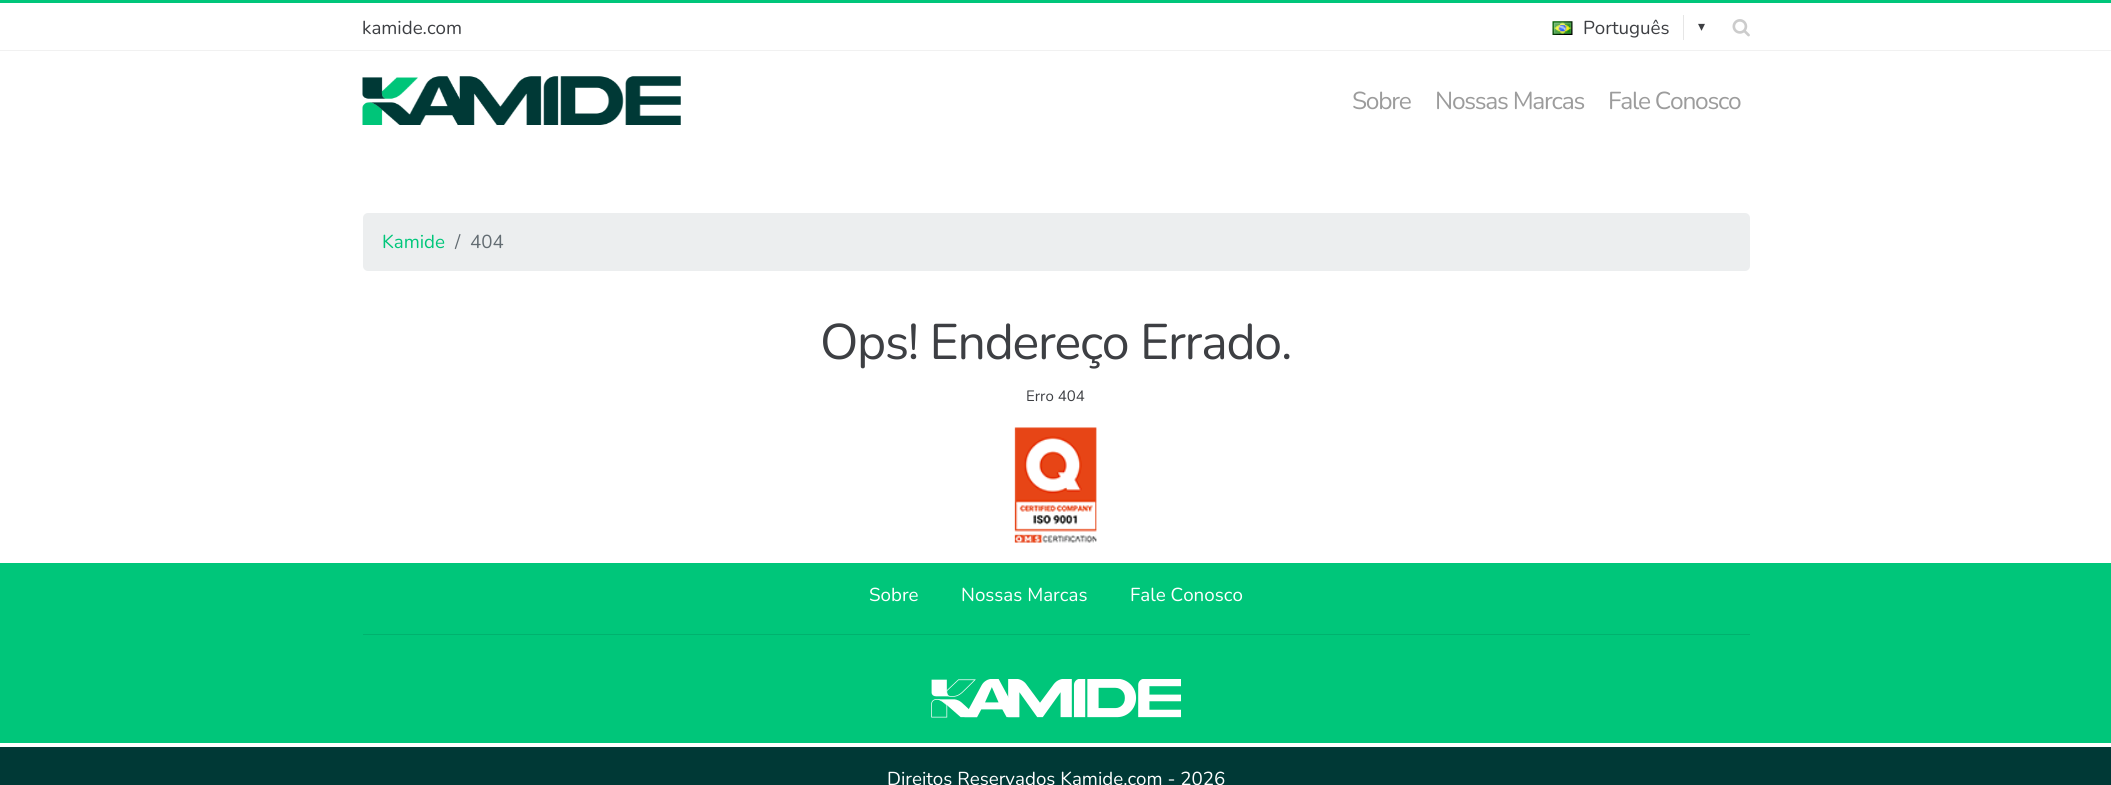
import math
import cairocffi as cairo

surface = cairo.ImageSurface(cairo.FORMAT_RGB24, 2111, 785)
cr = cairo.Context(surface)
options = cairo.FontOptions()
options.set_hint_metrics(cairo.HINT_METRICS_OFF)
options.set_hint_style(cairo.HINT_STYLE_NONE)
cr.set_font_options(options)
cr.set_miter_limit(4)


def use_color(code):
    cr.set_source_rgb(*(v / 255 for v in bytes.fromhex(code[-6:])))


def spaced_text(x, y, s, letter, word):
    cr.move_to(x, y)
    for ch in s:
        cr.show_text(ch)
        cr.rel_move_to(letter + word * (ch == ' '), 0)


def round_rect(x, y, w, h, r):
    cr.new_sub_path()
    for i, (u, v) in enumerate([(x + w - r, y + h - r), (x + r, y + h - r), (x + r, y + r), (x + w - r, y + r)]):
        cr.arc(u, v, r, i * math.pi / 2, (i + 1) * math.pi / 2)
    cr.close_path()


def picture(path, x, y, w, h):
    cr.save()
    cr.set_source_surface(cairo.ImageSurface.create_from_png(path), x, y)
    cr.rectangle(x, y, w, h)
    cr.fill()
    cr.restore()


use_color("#ffffff")
cr.paint()
use_color("#00c67a")
cr.rectangle(0, 0, 2111, 3)
cr.fill()
use_color("#f1f1f1")
cr.rectangle(0, 50, 2111, 1)
cr.fill()
cr.select_font_face("Nunito")
cr.set_font_size(18.75)
use_color("#3d3f43")
cr.move_to(362, 34)
cr.show_text("kamide.com")
picture("img1.png", 1552, 21, 21, 14)
cr.move_to(1583, 34)
cr.show_text("Português")
use_color("#e6e6e6")
cr.rectangle(1683, 15, 1, 25)
cr.fill()
cr.select_font_face("DejaVu Sans")
cr.set_font_size(14)
use_color("#3d3f43")
cr.move_to(1698, 31)
cr.show_text("▾")
picture("img2.png", 1732, 19, 18, 18)
picture("img3.png", 362, 76, 319, 49)
cr.select_font_face("Nunito")
cr.set_font_size(24.5)
use_color("#9c9c9c")
spaced_text(1352, 109, "Sobre", -1.25, 0)
spaced_text(1435, 109, "Nossas Marcas", -1.25, 0)
spaced_text(1608, 109, "Fale Conosco", -1.25, 0)
use_color("#eceeef")
round_rect(363, 213, 1387, 58, 5)
cr.fill()
cr.set_font_size(18.75)
use_color("#00c67a")
cr.move_to(382, 248)
cr.show_text("Kamide")
use_color("#636c72")
cr.move_to(455, 248)
cr.show_text("/")
cr.move_to(470, 248)
cr.show_text("404")
cr.set_font_size(50)
use_color("#3d3f43")
spaced_text(820, 359, "Ops! Endereço Errado.", -1.25, 0)
cr.set_font_size(15)
cr.move_to(1026, 401)
cr.show_text("Erro 404")
picture("img4.png", 1014, 427, 83, 116)
use_color("#00c67a")
cr.rectangle(0, 563, 2111, 180)
cr.fill()
use_color("#00b26e")
cr.rectangle(363, 634, 1387, 1)
cr.fill()
cr.set_font_size(18.75)
use_color("#ffffff")
cr.move_to(869, 601)
cr.show_text("Sobre")
cr.move_to(961, 601)
cr.show_text("Nossas Marcas")
cr.move_to(1130, 601)
cr.show_text("Fale Conosco")
picture("img5.png", 931, 679, 250, 39)
use_color("#003936")
cr.rectangle(0, 747, 2111, 38)
cr.fill()
use_color("#ffffff")
cr.move_to(887, 785)
cr.show_text("Direitos Reservados Kamide.com - 2026")
surface.write_to_png("result.png")
